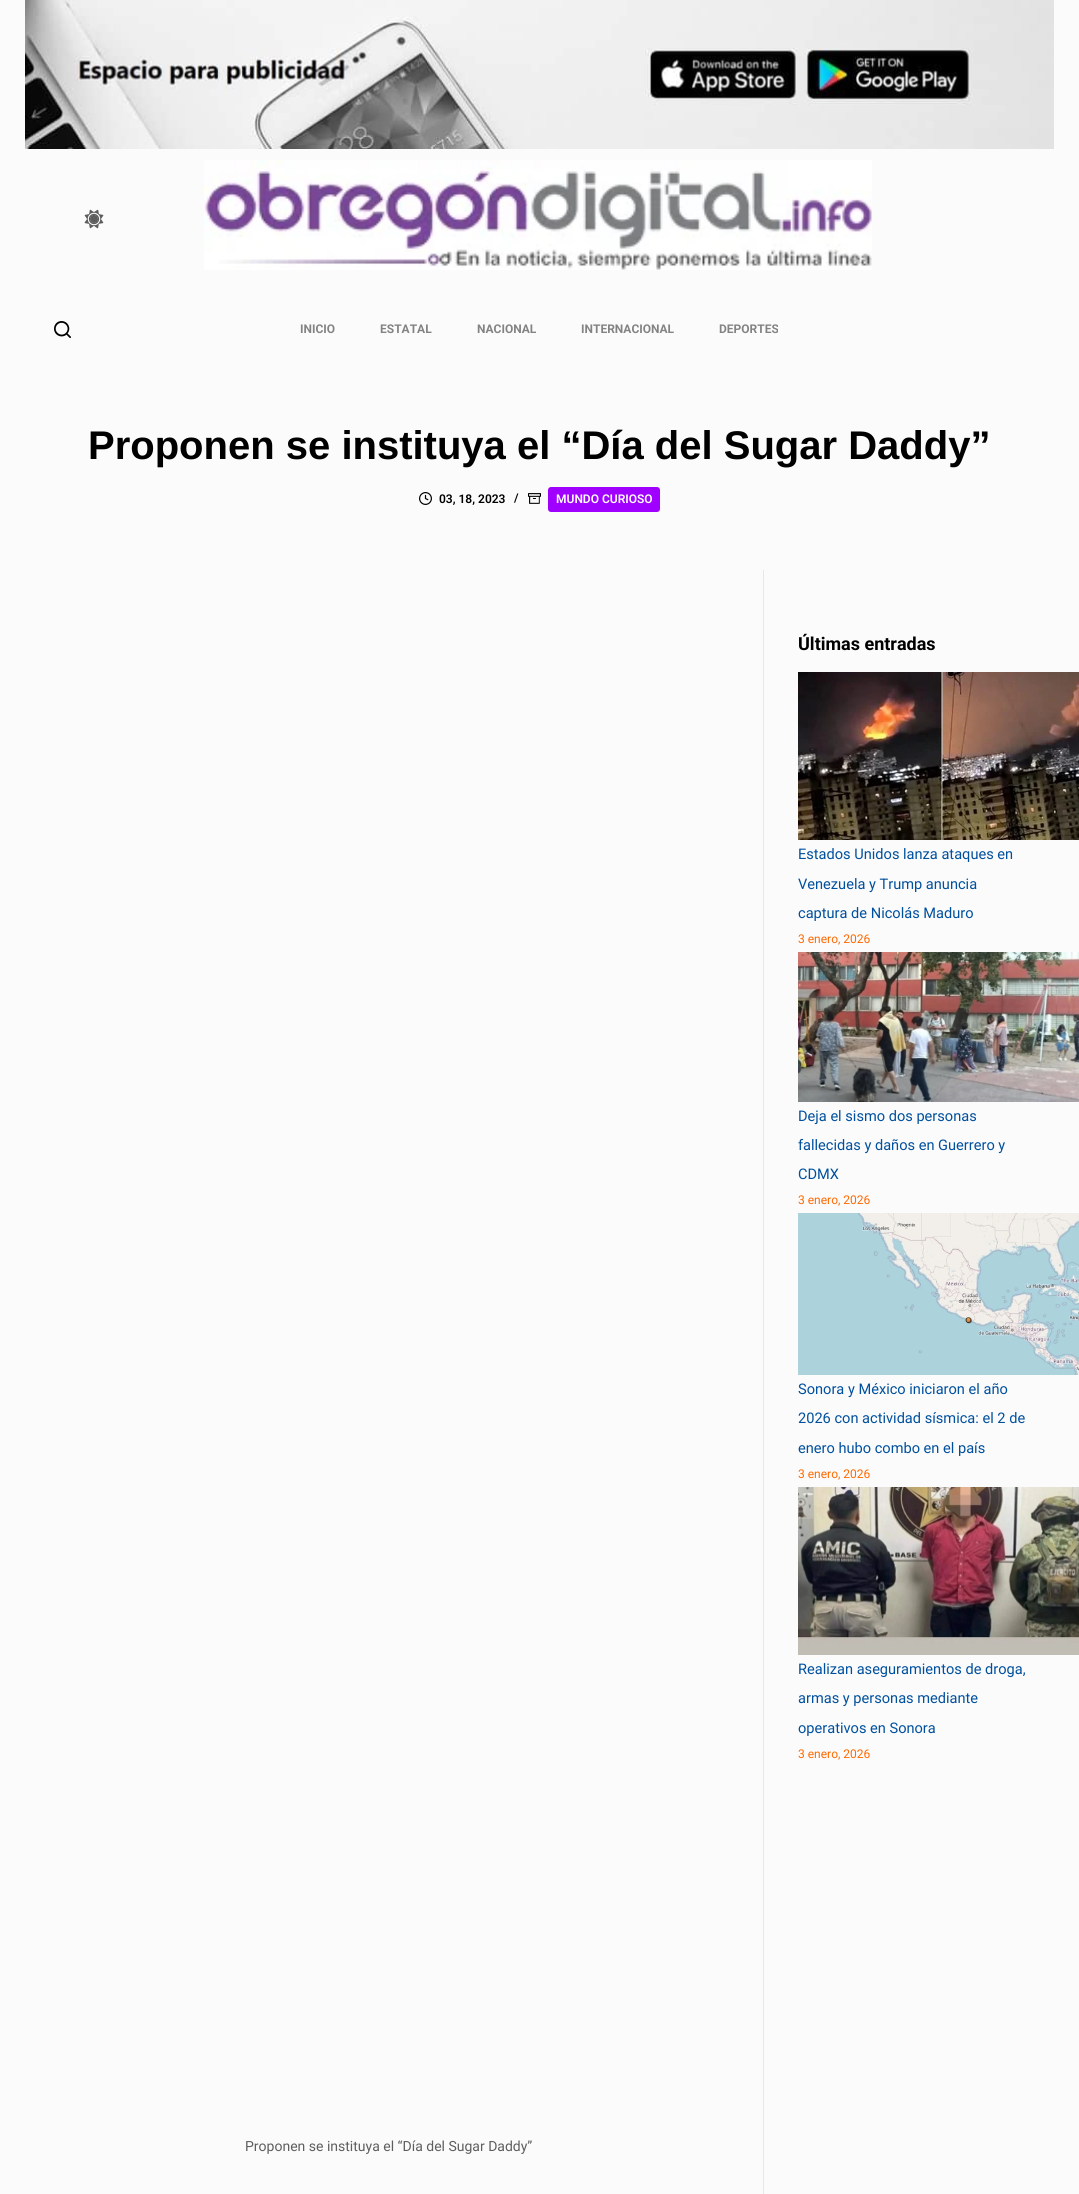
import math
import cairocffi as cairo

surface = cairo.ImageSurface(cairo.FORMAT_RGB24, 1079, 2194)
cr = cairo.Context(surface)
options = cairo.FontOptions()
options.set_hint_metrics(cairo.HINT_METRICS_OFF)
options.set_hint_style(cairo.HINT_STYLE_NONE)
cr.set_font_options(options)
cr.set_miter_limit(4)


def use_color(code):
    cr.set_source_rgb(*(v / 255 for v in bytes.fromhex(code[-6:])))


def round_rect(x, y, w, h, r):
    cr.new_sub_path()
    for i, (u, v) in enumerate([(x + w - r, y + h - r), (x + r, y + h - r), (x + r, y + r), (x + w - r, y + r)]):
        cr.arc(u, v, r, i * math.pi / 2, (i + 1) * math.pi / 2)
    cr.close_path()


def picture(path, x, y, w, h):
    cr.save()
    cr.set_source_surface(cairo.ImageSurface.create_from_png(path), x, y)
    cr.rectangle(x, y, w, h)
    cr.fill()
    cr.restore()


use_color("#fbfbfc")
cr.paint()
picture("img1.png", 25, 0, 1029, 149)
picture("img2.png", 84, 209, 20, 20)
picture("img3.png", 204, 160, 668, 110)
picture("img4.png", 54, 321, 17, 17)
cr.select_font_face("Roboto", cairo.FONT_SLANT_NORMAL, cairo.FONT_WEIGHT_BOLD)
cr.set_font_size(12)
use_color("#838383")
cr.move_to(300, 333)
cr.show_text("INICIO")
cr.move_to(380, 333)
cr.show_text("ESTATAL")
cr.move_to(477, 333)
cr.show_text("NACIONAL")
cr.move_to(581, 333)
cr.show_text("INTERNACIONAL")
cr.move_to(719, 333)
cr.show_text("DEPORTES")
cr.select_font_face("Liberation Sans", cairo.FONT_SLANT_NORMAL, cairo.FONT_WEIGHT_BOLD)
cr.set_font_size(40)
use_color("#000000")
cr.move_to(88, 459)
cr.show_text("Proponen se instituya el “Día del Sugar Daddy”")
picture("img5.png", 419, 492, 13, 13)
cr.select_font_face("Roboto SemiBold")
cr.set_font_size(12)
cr.move_to(439, 503)
cr.show_text("03, 18, 2023")
cr.move_to(514, 502)
cr.show_text("/")
picture("img6.png", 528, 493, 13, 11)
use_color("#9f00ff")
round_rect(548, 487, 112, 25, 3)
cr.fill()
use_color("#ffffff")
cr.move_to(556, 503)
cr.show_text("MUNDO CURIOSO")
use_color("#e5e9ee")
cr.rectangle(763, 570, 1, 1624)
cr.fill()
cr.select_font_face("Roboto", cairo.FONT_SLANT_NORMAL, cairo.FONT_WEIGHT_BOLD)
cr.set_font_size(18)
use_color("#000000")
cr.move_to(798, 650)
cr.show_text("Últimas entradas")
picture("img7.png", 798, 672, 281, 168)
cr.select_font_face("Roboto")
cr.set_font_size(14.6)
use_color("#00509d")
cr.move_to(798, 859)
cr.show_text("Estados Unidos lanza ataques en")
cr.move_to(798, 889)
cr.show_text("Venezuela y Trump anuncia")
cr.move_to(798, 918)
cr.show_text("captura de Nicolás Maduro")
cr.set_font_size(12)
use_color("#ff6900")
cr.move_to(798, 943)
cr.show_text("3 enero, 2026")
picture("img8.png", 798, 952, 281, 150)
cr.set_font_size(14.6)
use_color("#00509d")
cr.move_to(798, 1121)
cr.show_text("Deja el sismo dos personas")
cr.move_to(798, 1150)
cr.show_text("fallecidas y daños en Guerrero y")
cr.move_to(798, 1179)
cr.show_text("CDMX")
cr.set_font_size(12)
use_color("#ff6900")
cr.move_to(798, 1204)
cr.show_text("3 enero, 2026")
picture("img9.png", 798, 1213, 281, 162)
cr.set_font_size(14.6)
use_color("#00509d")
cr.move_to(798, 1394)
cr.show_text("Sonora y México iniciaron el año")
cr.move_to(798, 1423)
cr.show_text("2026 con actividad sísmica: el 2 de")
cr.move_to(798, 1453)
cr.show_text("enero hubo combo en el país")
cr.set_font_size(12)
use_color("#ff6900")
cr.move_to(798, 1478)
cr.show_text("3 enero, 2026")
picture("img10.png", 798, 1487, 281, 168)
cr.set_font_size(14.6)
use_color("#00509d")
cr.move_to(798, 1674)
cr.show_text("Realizan aseguramientos de droga,")
cr.move_to(798, 1703)
cr.show_text("armas y personas mediante")
cr.move_to(798, 1733)
cr.show_text("operativos en Sonora")
cr.set_font_size(12)
use_color("#ff6900")
cr.move_to(798, 1758)
cr.show_text("3 enero, 2026")
cr.set_font_size(14)
use_color("#5e5e5e")
cr.move_to(245, 2151)
cr.show_text("Proponen se instituya el “Día del Sugar Daddy”")
surface.write_to_png("result.png")
